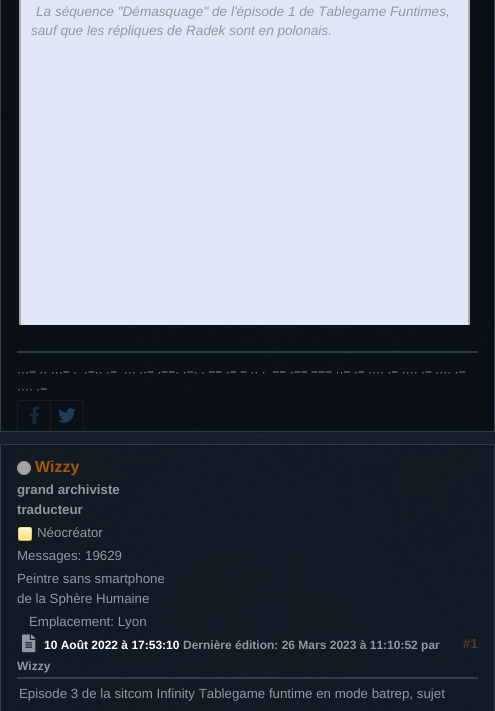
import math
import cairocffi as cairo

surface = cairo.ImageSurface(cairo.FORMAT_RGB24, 495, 711)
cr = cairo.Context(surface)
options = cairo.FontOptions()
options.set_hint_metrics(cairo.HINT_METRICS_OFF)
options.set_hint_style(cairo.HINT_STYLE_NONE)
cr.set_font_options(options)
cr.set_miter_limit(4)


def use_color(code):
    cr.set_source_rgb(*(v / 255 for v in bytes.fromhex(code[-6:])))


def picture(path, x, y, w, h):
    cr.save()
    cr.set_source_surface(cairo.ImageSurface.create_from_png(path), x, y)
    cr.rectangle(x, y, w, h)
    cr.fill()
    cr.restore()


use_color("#ffffff")
cr.paint()
picture("img1.png", 0, 0, 495, 711)
cr.set_source_rgba(0, 0, 0, 0.5)
cr.rectangle(0.5, -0.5, 494, 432)
cr.fill_preserve()
use_color("#2e3e4c")
cr.set_line_width(1)
cr.stroke()
use_color("#e0e6f6")
cr.rectangle(21, 0, 447, 324)
cr.fill()
use_color("#aaaaaa")
cr.new_path()
cr.move_to(470, -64)
cr.line_to(470, 325)
cr.line_to(468, 324)
cr.line_to(468, -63)
cr.close_path()
cr.fill()
use_color("#d6dfe2")
cr.new_path()
cr.move_to(470, 325)
cr.line_to(19, 325)
cr.line_to(21, 324)
cr.line_to(468, 324)
cr.close_path()
cr.fill()
use_color("#aaaaaa")
cr.new_path()
cr.move_to(19, 325)
cr.line_to(19, -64)
cr.line_to(21, -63)
cr.line_to(21, 324)
cr.close_path()
cr.fill()
cr.select_font_face("Liberation Sans", cairo.FONT_SLANT_ITALIC)
cr.set_font_size(13.6)
use_color("#8f98a0")
cr.move_to(36, 16)
cr.show_text("La séquence \"Démasquage\" de l'épisode 1 de Tablegame Funtimes,")
cr.move_to(31, 35)
cr.show_text("sauf que les répliques de Radek sont en polonais.")
use_color("#2e3e4c")
cr.rectangle(17, 351, 461, 2)
cr.fill()
cr.select_font_face("Liberation Sans")
cr.set_font_size(12)
use_color("#8f98a0")
cr.move_to(17, 376)
cr.show_text("···− ·· ···− ·  ·−·· ·−  ··· ··− ·−−· ·−· · −− ·− − ·· ·  −− ·−− −−− ··− ·− ···· ·− ···· ·− ···· ·−")
cr.move_to(17, 393)
cr.show_text("···· ·−")
use_color("#161e26")
cr.set_fill_rule(cairo.FILL_RULE_EVEN_ODD)
cr.new_path()
cr.move_to(20, 400)
cr.line_to(50, 400)
cr.line_to(50, 431)
cr.line_to(17, 431)
cr.line_to(17, 403)
cr.curve_to(17, 401.5, 18.5, 400, 20, 400)
cr.close_path()
cr.move_to(20, 401)
cr.line_to(50, 401)
cr.line_to(50, 431)
cr.line_to(18, 431)
cr.line_to(18, 403)
cr.curve_to(18, 402, 19, 401, 20, 401)
cr.close_path()
cr.fill()
picture("img2.png", 29, 406, 11, 19)
use_color("#151e26")
cr.new_path()
cr.move_to(50, 400)
cr.line_to(81, 400)
cr.curve_to(82.5, 400, 84, 401.5, 84, 403)
cr.line_to(84, 431)
cr.line_to(50, 431)
cr.close_path()
cr.move_to(51, 401)
cr.line_to(81, 401)
cr.curve_to(82, 401, 83, 402, 83, 403)
cr.line_to(83, 431)
cr.line_to(51, 431)
cr.close_path()
cr.fill()
picture("img3.png", 58, 408, 18, 15)
cr.set_source_rgba(0, 0, 0, 0.2)
cr.rectangle(0.5, 444.5, 494, 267)
cr.fill_preserve()
use_color("#2e3e4c")
cr.stroke()
use_color("#a7a2a2")
cr.arc(24, 468, 6.5, 0, 2 * math.pi)
cr.fill_preserve()
use_color("#969292")
cr.stroke()
cr.select_font_face("Liberation Sans", cairo.FONT_SLANT_NORMAL, cairo.FONT_WEIGHT_BOLD)
cr.set_font_size(16)
use_color("#a85400")
cr.move_to(35, 472)
cr.show_text("Wizzy")
cr.set_font_size(13.3)
use_color("#8f98a0")
cr.move_to(17, 494)
cr.show_text("grand archiviste")
cr.move_to(17, 514)
cr.show_text("traducteur")
picture("img4.png", 18, 527, 14, 14)
cr.select_font_face("Liberation Sans")
cr.move_to(37, 537)
cr.show_text("Néocréator")
cr.move_to(17, 560)
cr.show_text("Messages: 19629")
cr.move_to(17, 583)
cr.show_text("Peintre sans smartphone")
cr.move_to(17, 603)
cr.show_text("de la Sphère Humaine")
cr.move_to(29, 626)
cr.show_text("Emplacement: Lyon")
picture("img5.png", 22, 634, 14, 19)
cr.select_font_face("Liberation Sans", cairo.FONT_SLANT_NORMAL, cairo.FONT_WEIGHT_BOLD)
cr.set_font_size(12)
use_color("#ffffff")
cr.move_to(44, 649)
cr.show_text("10 Août 2022 à 17:53:10")
use_color("#8f98a0")
cr.move_to(183, 649)
cr.show_text("Dernière édition: 26 Mars 2023 à 11:10:52 par")
cr.set_font_size(13.3)
use_color("#503925")
cr.move_to(463, 648)
cr.show_text("#1")
cr.set_font_size(12)
use_color("#8f98a0")
cr.move_to(17, 670)
cr.show_text("Wizzy")
use_color("#2e3e4c")
cr.rectangle(17, 677, 461, 2)
cr.fill()
cr.select_font_face("Liberation Sans")
cr.set_font_size(13.3)
use_color("#8f98a0")
cr.move_to(19, 698)
cr.show_text("Episode 3 de la sitcom Infinity Tablegame funtime en mode batrep, sujet")
surface.write_to_png("result.png")
